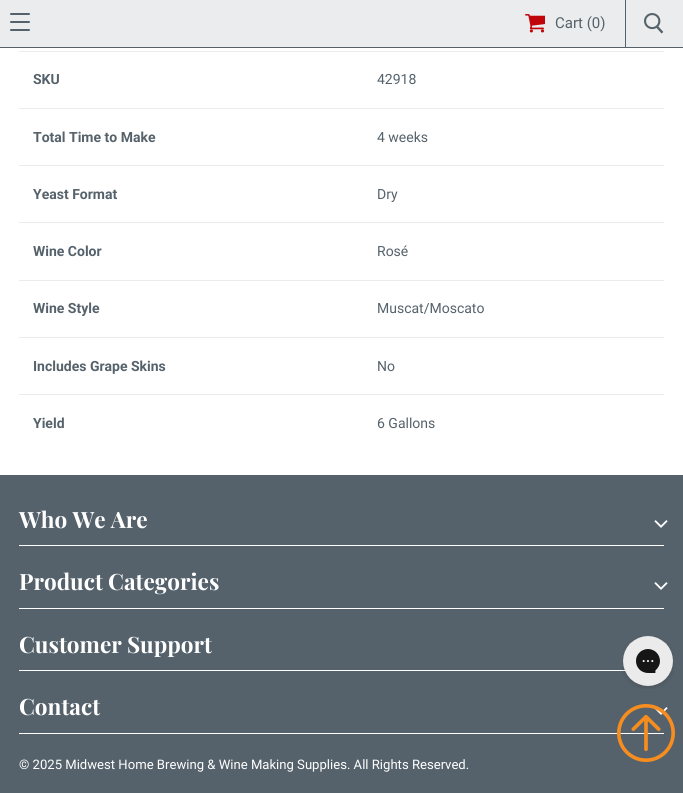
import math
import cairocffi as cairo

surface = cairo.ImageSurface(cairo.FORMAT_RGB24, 683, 793)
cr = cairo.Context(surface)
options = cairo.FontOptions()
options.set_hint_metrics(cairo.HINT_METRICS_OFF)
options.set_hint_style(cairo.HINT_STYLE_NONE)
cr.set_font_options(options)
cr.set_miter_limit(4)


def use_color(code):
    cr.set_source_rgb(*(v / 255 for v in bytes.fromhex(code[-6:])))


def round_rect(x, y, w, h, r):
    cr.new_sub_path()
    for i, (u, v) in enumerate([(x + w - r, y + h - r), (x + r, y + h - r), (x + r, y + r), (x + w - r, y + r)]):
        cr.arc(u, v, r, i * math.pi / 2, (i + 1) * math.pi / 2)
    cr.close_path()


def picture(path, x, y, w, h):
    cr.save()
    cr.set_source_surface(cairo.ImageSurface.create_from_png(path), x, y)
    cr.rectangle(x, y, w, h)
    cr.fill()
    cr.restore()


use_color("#ffffff")
cr.paint()
use_color("#ebeced")
cr.rectangle(0, 0, 683, 47)
cr.fill()
use_color("#55626b")
cr.rectangle(0, 47, 683, 1)
cr.fill()
round_rect(10, 13, 20, 2, 1)
cr.fill()
round_rect(10, 21, 20, 2, 1)
cr.fill()
round_rect(10, 29, 20, 2, 1)
cr.fill()
cr.rectangle(625, 0, 1, 47)
cr.fill()
picture("img1.png", 525, 14, 20, 19)
cr.select_font_face("Roboto")
cr.set_font_size(15)
cr.move_to(555, 28)
cr.show_text("Cart (0)")
picture("img2.png", 644, 13, 20, 21)
use_color("#ebeced")
cr.rectangle(19, 51, 645, 1)
cr.fill()
cr.rectangle(19, 108, 645, 1)
cr.fill()
cr.select_font_face("Roboto", cairo.FONT_SLANT_NORMAL, cairo.FONT_WEIGHT_BOLD)
cr.set_font_size(14)
use_color("#55626b")
cr.move_to(33, 84)
cr.show_text("SKU")
cr.select_font_face("Roboto")
cr.move_to(377, 84)
cr.show_text("42918")
use_color("#ebeced")
cr.rectangle(19, 165, 645, 1)
cr.fill()
cr.select_font_face("Roboto", cairo.FONT_SLANT_NORMAL, cairo.FONT_WEIGHT_BOLD)
use_color("#55626b")
cr.move_to(33, 142)
cr.show_text("Total Time to Make")
cr.select_font_face("Roboto")
cr.move_to(377, 142)
cr.show_text("4 weeks")
use_color("#ebeced")
cr.rectangle(19, 222, 645, 1)
cr.fill()
cr.select_font_face("Roboto", cairo.FONT_SLANT_NORMAL, cairo.FONT_WEIGHT_BOLD)
use_color("#55626b")
cr.move_to(33, 199)
cr.show_text("Yeast Format")
cr.select_font_face("Roboto")
cr.move_to(377, 199)
cr.show_text("Dry")
use_color("#ebeced")
cr.rectangle(19, 280, 645, 1)
cr.fill()
cr.select_font_face("Roboto", cairo.FONT_SLANT_NORMAL, cairo.FONT_WEIGHT_BOLD)
use_color("#55626b")
cr.move_to(33, 256)
cr.show_text("Wine Color")
cr.select_font_face("Roboto")
cr.move_to(377, 256)
cr.show_text("Rosé")
use_color("#ebeced")
cr.rectangle(19, 337, 645, 1)
cr.fill()
cr.select_font_face("Roboto", cairo.FONT_SLANT_NORMAL, cairo.FONT_WEIGHT_BOLD)
use_color("#55626b")
cr.move_to(33, 313)
cr.show_text("Wine Style")
cr.select_font_face("Roboto")
cr.move_to(377, 313)
cr.show_text("Muscat/Moscato")
use_color("#ebeced")
cr.rectangle(19, 394, 645, 1)
cr.fill()
cr.select_font_face("Roboto", cairo.FONT_SLANT_NORMAL, cairo.FONT_WEIGHT_BOLD)
use_color("#55626b")
cr.move_to(33, 371)
cr.show_text("Includes Grape Skins")
cr.select_font_face("Roboto")
cr.move_to(377, 371)
cr.show_text("No")
cr.select_font_face("Roboto", cairo.FONT_SLANT_NORMAL, cairo.FONT_WEIGHT_BOLD)
cr.move_to(33, 428)
cr.show_text("Yield")
cr.select_font_face("Roboto")
cr.move_to(377, 428)
cr.show_text("6 Gallons")
cr.rectangle(0, 475, 683, 318)
cr.fill()
use_color("#ffffff")
cr.rectangle(19, 545, 645, 1)
cr.fill()
cr.select_font_face("Playfair Display", cairo.FONT_SLANT_NORMAL, cairo.FONT_WEIGHT_BOLD)
cr.set_font_size(22.5)
cr.move_to(19, 528)
cr.show_text("Who We Are")
picture("img3.png", 654, 520, 14, 8)
cr.rectangle(19, 608, 645, 1)
cr.fill()
cr.move_to(19, 590)
cr.show_text("Product Categories")
picture("img3.png", 654, 582, 14, 8)
cr.rectangle(19, 670, 606, 1)
cr.fill()
cr.move_to(19, 653)
cr.show_text("Customer Support")
picture("img4.png", 667, 645, 1, 1)
cr.rectangle(19, 733, 645, 1)
cr.fill()
cr.move_to(19, 715)
cr.show_text("Contact")
picture("img3.png", 654, 707, 14, 8)
cr.select_font_face("Roboto")
cr.set_font_size(13.1)
cr.move_to(19, 769)
cr.show_text("© 2025 Midwest Home Brewing & Wine Making Supplies. All Rights Reserved.")
picture("img5.png", 622, 636, 52, 53)
picture("img6.png", 617, 704, 58, 58)
surface.write_to_png("result.png")
